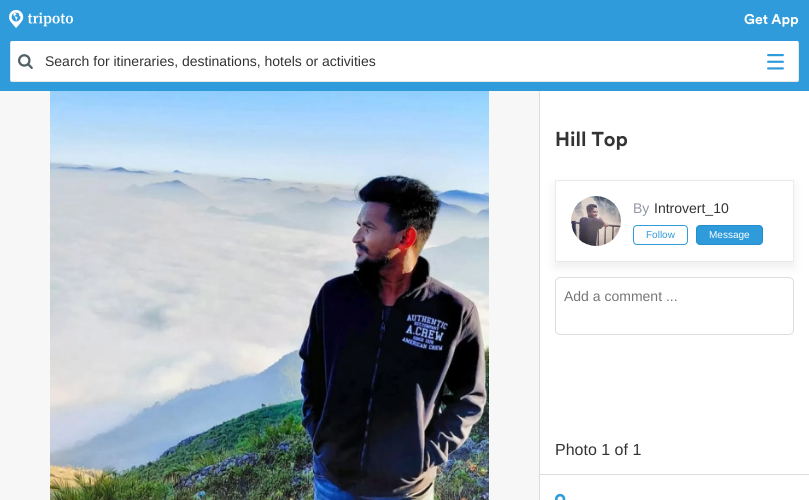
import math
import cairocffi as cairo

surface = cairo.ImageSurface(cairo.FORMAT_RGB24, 809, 500)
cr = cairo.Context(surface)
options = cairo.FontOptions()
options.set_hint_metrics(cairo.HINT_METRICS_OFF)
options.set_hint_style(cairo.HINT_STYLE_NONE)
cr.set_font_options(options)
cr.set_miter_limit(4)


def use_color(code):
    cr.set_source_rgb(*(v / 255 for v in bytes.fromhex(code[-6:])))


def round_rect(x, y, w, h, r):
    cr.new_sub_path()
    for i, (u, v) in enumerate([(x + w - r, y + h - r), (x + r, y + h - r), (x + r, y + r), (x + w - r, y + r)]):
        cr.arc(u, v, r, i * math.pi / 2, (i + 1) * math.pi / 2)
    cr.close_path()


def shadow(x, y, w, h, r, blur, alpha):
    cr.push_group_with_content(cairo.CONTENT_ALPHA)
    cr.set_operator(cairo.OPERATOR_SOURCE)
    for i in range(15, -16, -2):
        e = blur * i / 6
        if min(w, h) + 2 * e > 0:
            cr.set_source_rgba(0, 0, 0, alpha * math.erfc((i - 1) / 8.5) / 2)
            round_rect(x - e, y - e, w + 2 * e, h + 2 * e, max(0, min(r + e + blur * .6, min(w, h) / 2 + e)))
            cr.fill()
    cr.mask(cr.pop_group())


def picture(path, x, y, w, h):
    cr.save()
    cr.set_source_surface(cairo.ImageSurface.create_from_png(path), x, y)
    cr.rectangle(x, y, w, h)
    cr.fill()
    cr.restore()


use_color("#ffffff")
cr.paint()
use_color("#dddddd")
cr.rectangle(539, 90, 1, 410)
cr.fill()
use_color("#2f9bdb")
cr.rectangle(0, 0, 809, 91)
cr.fill()
picture("img1.png", 9, 10, 64, 18)
cr.select_font_face("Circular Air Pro", cairo.FONT_SLANT_NORMAL, cairo.FONT_WEIGHT_BOLD)
cr.set_font_size(14)
use_color("#ffffff")
cr.move_to(744, 24)
cr.show_text("Get App")
round_rect(10, 41, 789, 41, 2)
cr.fill()
picture("img2.png", 18, 54, 15, 15)
cr.set_source_rgba(0, 0, 0, 0.09)
cr.rectangle(798, 42, 1, 39)
cr.fill()
cr.rectangle(11, 81, 787, 1)
cr.fill()
cr.rectangle(10, 42, 1, 39)
cr.fill()
cr.select_font_face("Liberation Sans")
use_color("#333333")
cr.move_to(45, 66)
cr.show_text("Search for itineraries, destinations, hotels or activities")
picture("img3.png", 767, 54, 17, 16)
use_color("#f7f7f7")
cr.rectangle(0, 91, 539, 409)
cr.fill()
picture("img4.png", 50, 91, 439, 409)
cr.select_font_face("Circular Air Pro", cairo.FONT_SLANT_NORMAL, cairo.FONT_WEIGHT_BOLD)
cr.set_font_size(20)
use_color("#333333")
cr.move_to(555, 146)
cr.show_text("Hill Top")
cr.save()
cr.set_fill_rule(cairo.FILL_RULE_EVEN_ODD)
cr.new_path()
cr.move_to(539, 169)
cr.line_to(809, 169)
cr.line_to(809, 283)
cr.line_to(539, 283)
cr.close_path()
cr.move_to(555, 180)
cr.line_to(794, 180)
cr.line_to(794, 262)
cr.line_to(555, 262)
cr.close_path()
cr.clip()
use_color("#dddddd")
shadow(555, 185, 239, 82, 0, 5, 0.5)
cr.restore()
cr.rectangle(555.5, 180.5, 238, 81)
use_color("#e9eaed")
cr.set_line_width(1)
cr.stroke()
picture("img5.png", 571, 196, 50, 50)
cr.select_font_face("Liberation Sans")
cr.set_font_size(14)
use_color("#9197a3")
cr.move_to(633, 213)
cr.show_text("By")
use_color("#333333")
cr.move_to(654, 213)
cr.show_text("Introvert_10")
round_rect(633.5, 225.5, 54, 19, 3.5)
use_color("#2f9bdb")
cr.stroke()
cr.set_font_size(10)
cr.move_to(646, 238)
cr.show_text("Follow")
round_rect(696.5, 225.5, 66, 19, 3.5)
cr.fill_preserve()
use_color("#238ecd")
cr.stroke()
use_color("#ffffff")
cr.move_to(709, 238)
cr.show_text("Message")
round_rect(555.5, 277.5, 238, 57, 4.5)
use_color("#dddddd")
cr.stroke()
cr.set_font_size(14)
use_color("#757575")
cr.move_to(564, 301)
cr.show_text("Add a comment ...")
use_color("#dddddd")
cr.rectangle(540, 474, 269, 1)
cr.fill()
cr.set_font_size(16)
use_color("#333333")
cr.move_to(555, 455)
cr.show_text("Photo 1 of 1")
picture("img6.png", 555, 493, 11, 7)
surface.write_to_png("result.png")
